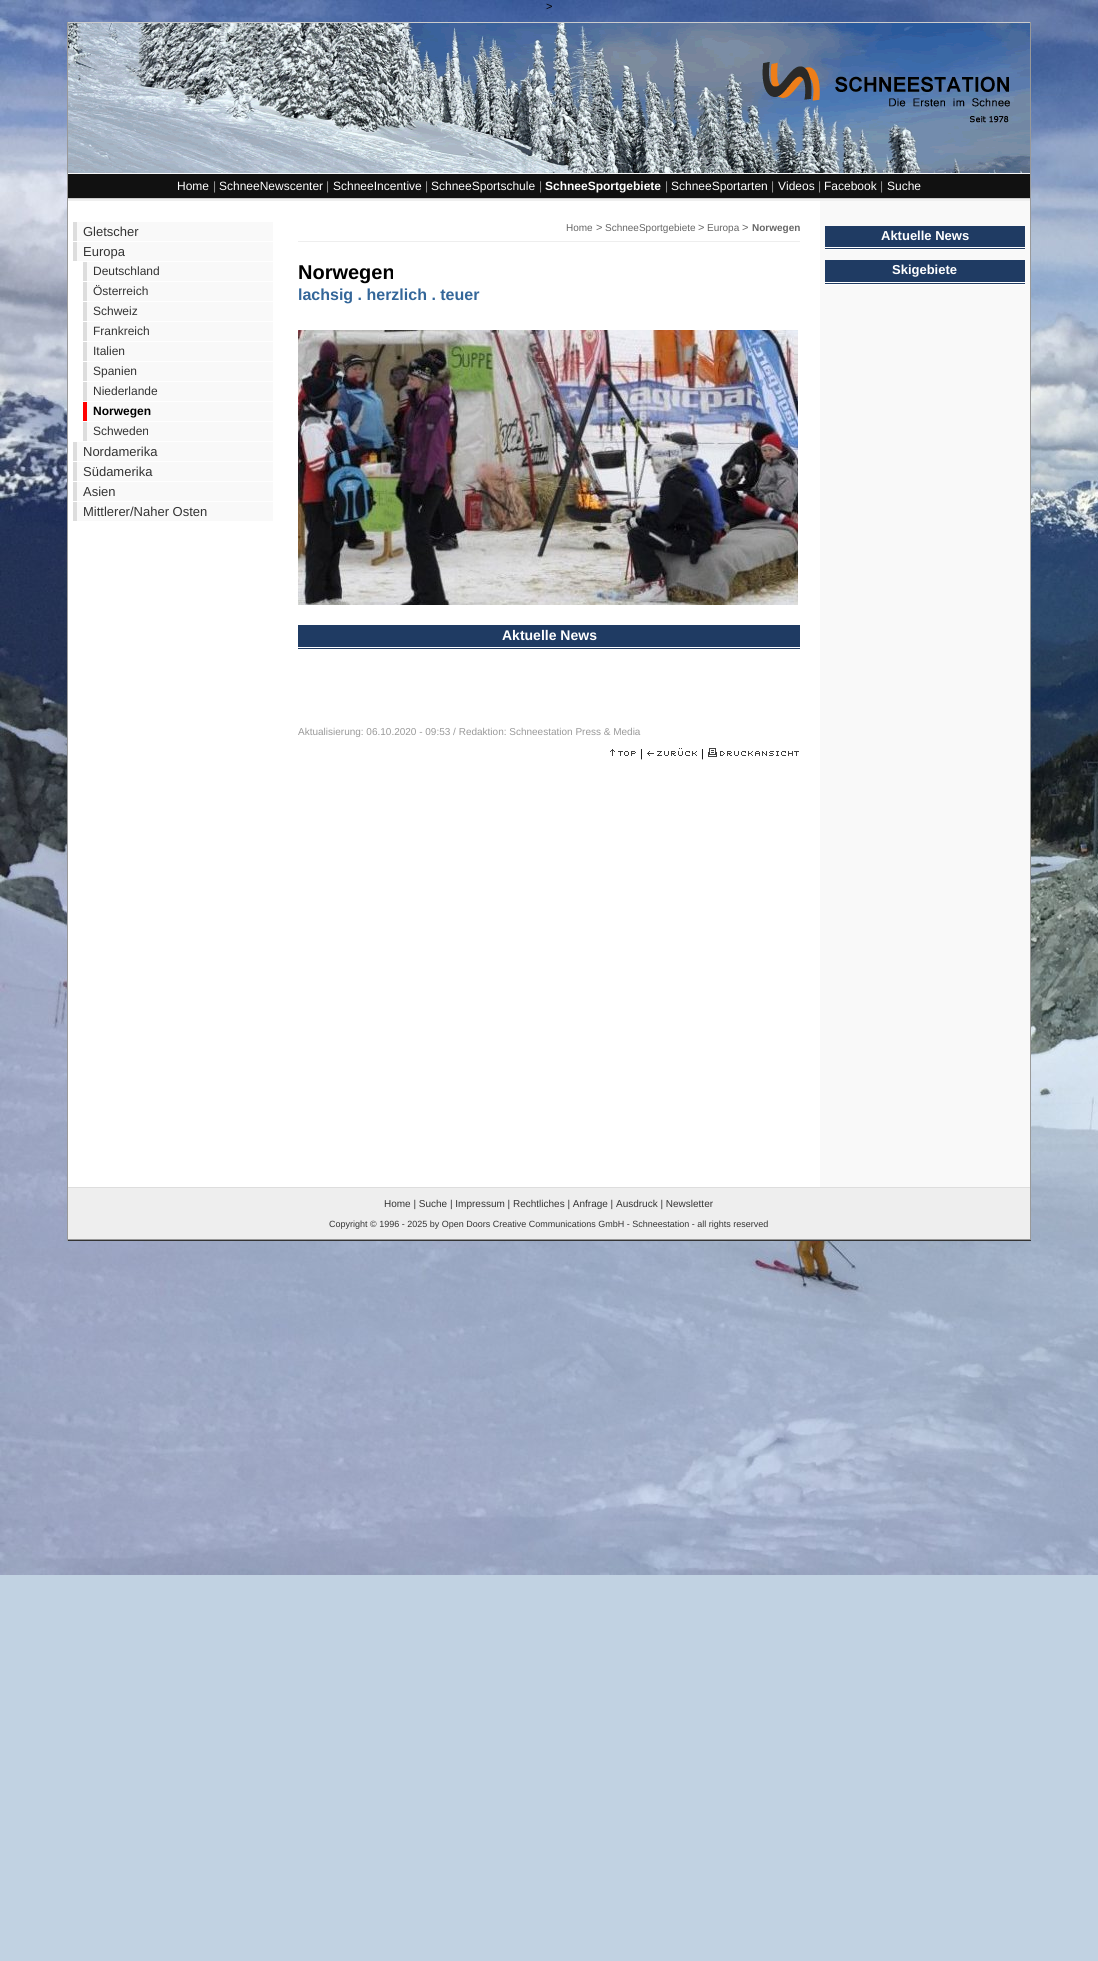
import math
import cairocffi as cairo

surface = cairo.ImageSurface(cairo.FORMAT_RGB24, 1098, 1961)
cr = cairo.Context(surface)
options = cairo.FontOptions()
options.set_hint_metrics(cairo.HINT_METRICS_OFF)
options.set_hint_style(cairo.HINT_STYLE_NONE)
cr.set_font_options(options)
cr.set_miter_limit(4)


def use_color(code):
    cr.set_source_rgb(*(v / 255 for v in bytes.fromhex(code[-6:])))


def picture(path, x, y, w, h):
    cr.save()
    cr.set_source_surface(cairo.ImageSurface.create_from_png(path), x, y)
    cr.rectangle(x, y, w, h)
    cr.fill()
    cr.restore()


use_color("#c1d2e2")
cr.paint()
picture("img1.png", 0, 0, 1098, 1575)
cr.select_font_face("Liberation Sans")
cr.set_font_size(11)
use_color("#000000")
cr.move_to(546, 10)
cr.show_text(">")
use_color("#f9f9f9")
cr.rectangle(68, 173, 962, 1)
cr.fill()
use_color("#cccccc")
cr.rectangle(67, 22, 964, 1)
cr.fill()
use_color("#999999")
cr.rectangle(1030, 22, 1, 1219)
cr.fill()
use_color("#333333")
cr.rectangle(67, 1240, 964, 1)
cr.fill()
use_color("#999999")
cr.rectangle(67, 22, 1, 1219)
cr.fill()
picture("img2.png", 68, 23, 962, 150)
use_color("#111111")
cr.rectangle(68, 174, 962, 24)
cr.fill()
cr.set_font_size(12)
use_color("#ffffff")
cr.move_to(177, 190)
cr.show_text("Home")
use_color("#999999")
cr.move_to(213, 190)
cr.show_text("|")
use_color("#ffffff")
cr.move_to(219, 190)
cr.show_text("SchneeNewscenter")
use_color("#999999")
cr.move_to(326, 190)
cr.show_text("|")
use_color("#ffffff")
cr.move_to(333, 190)
cr.show_text("SchneeIncentive")
use_color("#999999")
cr.move_to(425, 190)
cr.show_text("|")
use_color("#ffffff")
cr.move_to(431, 190)
cr.show_text("SchneeSportschule")
use_color("#999999")
cr.move_to(539, 190)
cr.show_text("|")
cr.select_font_face("Liberation Sans", cairo.FONT_SLANT_NORMAL, cairo.FONT_WEIGHT_BOLD)
use_color("#ffffff")
cr.move_to(545, 190)
cr.show_text("SchneeSportgebiete")
cr.select_font_face("Liberation Sans")
use_color("#999999")
cr.move_to(665, 190)
cr.show_text("|")
use_color("#ffffff")
cr.move_to(671, 190)
cr.show_text("SchneeSportarten")
use_color("#999999")
cr.move_to(771, 190)
cr.show_text("|")
use_color("#ffffff")
cr.move_to(778, 190)
cr.show_text("Videos")
use_color("#999999")
cr.move_to(818, 190)
cr.show_text("|")
use_color("#ffffff")
cr.move_to(824, 190)
cr.show_text("Facebook")
use_color("#999999")
cr.move_to(880, 190)
cr.show_text("|")
use_color("#ffffff")
cr.move_to(887, 190)
cr.show_text("Suche")
cr.rectangle(68, 201, 752, 986)
cr.fill()
use_color("#cccccc")
cr.rectangle(68, 198, 962, 1)
cr.fill()
use_color("#efefef")
cr.rectangle(68, 199, 962, 2)
cr.fill()
use_color("#f9f9f9")
cr.rectangle(77, 222, 196, 19)
cr.fill()
use_color("#dddddd")
cr.rectangle(73, 222, 4, 19)
cr.fill()
cr.set_font_size(13)
use_color("#333333")
cr.move_to(83, 236)
cr.show_text("Gletscher")
use_color("#f9f9f9")
cr.rectangle(77, 242, 196, 19)
cr.fill()
use_color("#dddddd")
cr.rectangle(73, 242, 4, 19)
cr.fill()
use_color("#333333")
cr.move_to(83, 256)
cr.show_text("Europa")
use_color("#f9f9f9")
cr.rectangle(87, 262, 186, 19)
cr.fill()
use_color("#dddddd")
cr.rectangle(83, 262, 4, 19)
cr.fill()
cr.set_font_size(12)
use_color("#333333")
cr.move_to(93, 275)
cr.show_text("Deutschland")
use_color("#f9f9f9")
cr.rectangle(87, 282, 186, 19)
cr.fill()
use_color("#dddddd")
cr.rectangle(83, 282, 4, 19)
cr.fill()
use_color("#333333")
cr.move_to(93, 295)
cr.show_text("Österreich")
use_color("#f9f9f9")
cr.rectangle(87, 302, 186, 19)
cr.fill()
use_color("#dddddd")
cr.rectangle(83, 302, 4, 19)
cr.fill()
use_color("#333333")
cr.move_to(93, 315)
cr.show_text("Schweiz")
use_color("#f9f9f9")
cr.rectangle(87, 322, 186, 19)
cr.fill()
use_color("#dddddd")
cr.rectangle(83, 322, 4, 19)
cr.fill()
use_color("#333333")
cr.move_to(93, 335)
cr.show_text("Frankreich")
use_color("#f9f9f9")
cr.rectangle(87, 342, 186, 19)
cr.fill()
use_color("#dddddd")
cr.rectangle(83, 342, 4, 19)
cr.fill()
use_color("#333333")
cr.move_to(93, 355)
cr.show_text("Italien")
use_color("#f9f9f9")
cr.rectangle(87, 362, 186, 19)
cr.fill()
use_color("#dddddd")
cr.rectangle(83, 362, 4, 19)
cr.fill()
use_color("#333333")
cr.move_to(93, 375)
cr.show_text("Spanien")
use_color("#f9f9f9")
cr.rectangle(87, 382, 186, 19)
cr.fill()
use_color("#dddddd")
cr.rectangle(83, 382, 4, 19)
cr.fill()
use_color("#333333")
cr.move_to(93, 395)
cr.show_text("Niederlande")
use_color("#f9f9f9")
cr.rectangle(87, 402, 186, 19)
cr.fill()
use_color("#ff0000")
cr.rectangle(83, 402, 4, 19)
cr.fill()
cr.select_font_face("Liberation Sans", cairo.FONT_SLANT_NORMAL, cairo.FONT_WEIGHT_BOLD)
use_color("#000000")
cr.move_to(93, 415)
cr.show_text("Norwegen")
use_color("#f9f9f9")
cr.rectangle(87, 422, 186, 19)
cr.fill()
use_color("#dddddd")
cr.rectangle(83, 422, 4, 19)
cr.fill()
cr.select_font_face("Liberation Sans")
use_color("#333333")
cr.move_to(93, 435)
cr.show_text("Schweden")
use_color("#f9f9f9")
cr.rectangle(77, 442, 196, 19)
cr.fill()
use_color("#dddddd")
cr.rectangle(73, 442, 4, 19)
cr.fill()
cr.set_font_size(13)
use_color("#333333")
cr.move_to(83, 456)
cr.show_text("Nordamerika")
use_color("#f9f9f9")
cr.rectangle(77, 462, 196, 19)
cr.fill()
use_color("#dddddd")
cr.rectangle(73, 462, 4, 19)
cr.fill()
use_color("#333333")
cr.move_to(83, 476)
cr.show_text("Südamerika")
use_color("#f9f9f9")
cr.rectangle(77, 482, 196, 19)
cr.fill()
use_color("#dddddd")
cr.rectangle(73, 482, 4, 19)
cr.fill()
use_color("#333333")
cr.move_to(83, 496)
cr.show_text("Asien")
use_color("#f9f9f9")
cr.rectangle(77, 502, 196, 19)
cr.fill()
use_color("#dddddd")
cr.rectangle(73, 502, 4, 19)
cr.fill()
use_color("#333333")
cr.move_to(83, 516)
cr.show_text("Mittlerer/Naher Osten")
use_color("#eeeeee")
cr.rectangle(298, 241, 502, 1)
cr.fill()
cr.set_font_size(10)
use_color("#666666")
cr.move_to(566, 231)
cr.show_text("Home")
cr.set_font_size(11)
cr.move_to(596, 231)
cr.show_text(">")
cr.set_font_size(10)
cr.move_to(605, 231)
cr.show_text("SchneeSportgebiete")
cr.set_font_size(11)
cr.move_to(698, 231)
cr.show_text(">")
cr.set_font_size(10)
cr.move_to(707, 231)
cr.show_text("Europa")
cr.set_font_size(11)
cr.move_to(742, 231)
cr.show_text(">")
cr.select_font_face("Liberation Sans", cairo.FONT_SLANT_NORMAL, cairo.FONT_WEIGHT_BOLD)
cr.set_font_size(10)
cr.move_to(752, 231)
cr.show_text("Norwegen")
cr.set_font_size(20)
use_color("#000000")
cr.move_to(298, 279)
cr.show_text("Norwegen")
cr.set_font_size(16)
use_color("#336699")
cr.move_to(298, 300)
cr.show_text("lachsig . herzlich . teuer")
picture("img3.png", 298, 330, 500, 275)
use_color("#1f3b63")
cr.rectangle(298, 625, 502, 24)
cr.fill()
use_color("#ffffff")
cr.rectangle(298, 647, 502, 1)
cr.fill()
cr.set_font_size(14)
cr.move_to(502, 640)
cr.show_text("Aktuelle News")
cr.select_font_face("Liberation Sans")
cr.set_font_size(10)
use_color("#999999")
cr.move_to(298, 735)
cr.show_text("Aktualisierung: 06.10.2020 - 09:53 / Redaktion: Schneestation Press & Media")
picture("img4.png", 610, 749, 26, 7)
cr.set_font_size(11)
use_color("#000000")
cr.move_to(640, 757)
cr.show_text("|")
picture("img5.png", 647, 748, 50, 8)
cr.move_to(701, 757)
cr.show_text("|")
picture("img6.png", 708, 748, 91, 9)
use_color("#f9f9f9")
cr.rectangle(820, 201, 210, 986)
cr.fill()
use_color("#1f3b63")
cr.rectangle(825, 226, 200, 23)
cr.fill()
use_color("#ffffff")
cr.rectangle(825, 247, 200, 1)
cr.fill()
cr.rectangle(825, 249, 200, 1)
cr.fill()
cr.select_font_face("Liberation Sans", cairo.FONT_SLANT_NORMAL, cairo.FONT_WEIGHT_BOLD)
cr.set_font_size(13)
cr.move_to(881, 240)
cr.show_text("Aktuelle News")
use_color("#1f3b63")
cr.rectangle(825, 260, 200, 24)
cr.fill()
use_color("#ffffff")
cr.rectangle(825, 282, 200, 1)
cr.fill()
cr.rectangle(825, 284, 200, 1)
cr.fill()
cr.move_to(892, 274)
cr.show_text("Skigebiete")
use_color("#eeeeee")
cr.rectangle(68, 1188, 962, 51)
cr.fill()
use_color("#dddddd")
cr.rectangle(68, 1187, 962, 1)
cr.fill()
use_color("#999999")
cr.rectangle(68, 1239, 962, 1)
cr.fill()
cr.select_font_face("Liberation Sans")
cr.set_font_size(10)
use_color("#333333")
cr.move_to(384, 1207)
cr.show_text("Home | Suche | Impressum | Rechtliches | Anfrage | Ausdruck | Newsletter")
cr.set_font_size(9)
cr.move_to(329, 1227)
cr.show_text("Copyright © 1996 - 2025 by Open Doors Creative Communications GmbH - Schneestation - all rights reserved")
surface.write_to_png("result.png")
